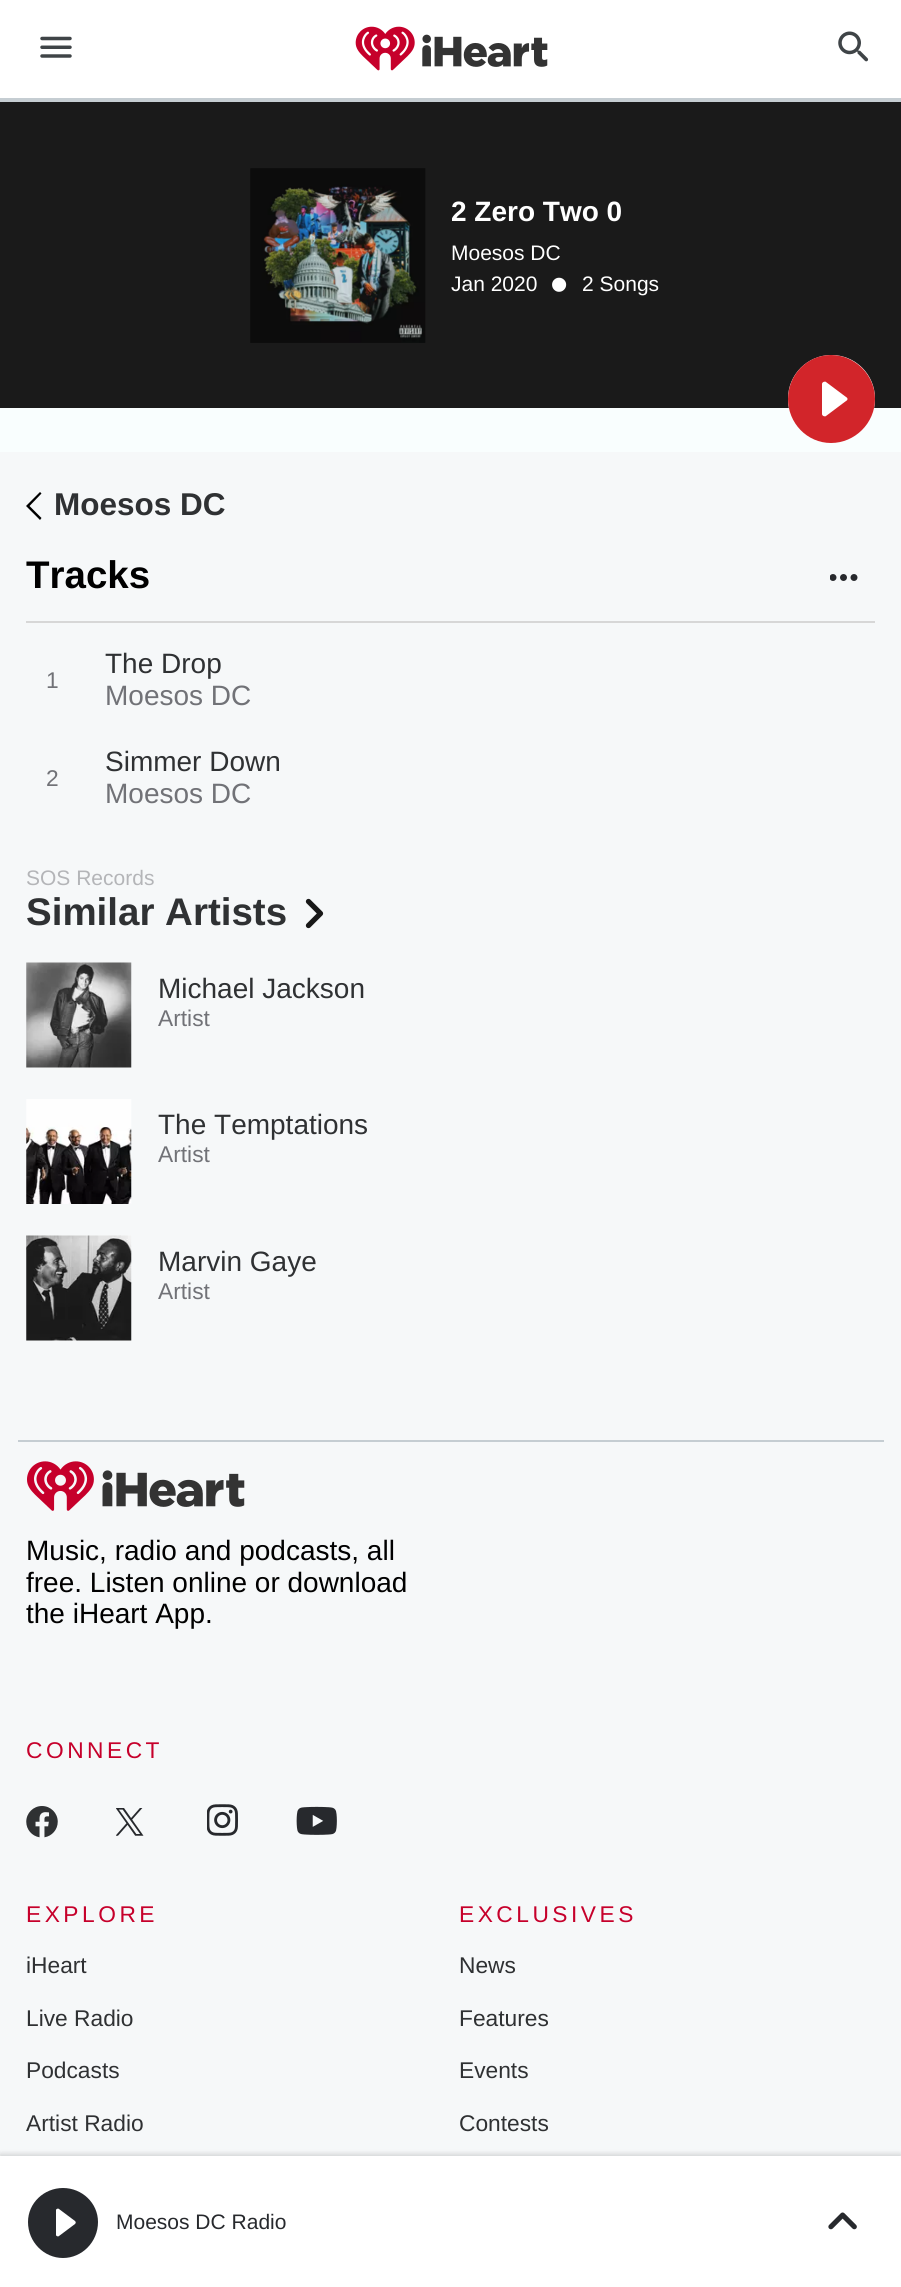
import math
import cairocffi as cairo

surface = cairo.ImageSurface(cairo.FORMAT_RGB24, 901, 2287)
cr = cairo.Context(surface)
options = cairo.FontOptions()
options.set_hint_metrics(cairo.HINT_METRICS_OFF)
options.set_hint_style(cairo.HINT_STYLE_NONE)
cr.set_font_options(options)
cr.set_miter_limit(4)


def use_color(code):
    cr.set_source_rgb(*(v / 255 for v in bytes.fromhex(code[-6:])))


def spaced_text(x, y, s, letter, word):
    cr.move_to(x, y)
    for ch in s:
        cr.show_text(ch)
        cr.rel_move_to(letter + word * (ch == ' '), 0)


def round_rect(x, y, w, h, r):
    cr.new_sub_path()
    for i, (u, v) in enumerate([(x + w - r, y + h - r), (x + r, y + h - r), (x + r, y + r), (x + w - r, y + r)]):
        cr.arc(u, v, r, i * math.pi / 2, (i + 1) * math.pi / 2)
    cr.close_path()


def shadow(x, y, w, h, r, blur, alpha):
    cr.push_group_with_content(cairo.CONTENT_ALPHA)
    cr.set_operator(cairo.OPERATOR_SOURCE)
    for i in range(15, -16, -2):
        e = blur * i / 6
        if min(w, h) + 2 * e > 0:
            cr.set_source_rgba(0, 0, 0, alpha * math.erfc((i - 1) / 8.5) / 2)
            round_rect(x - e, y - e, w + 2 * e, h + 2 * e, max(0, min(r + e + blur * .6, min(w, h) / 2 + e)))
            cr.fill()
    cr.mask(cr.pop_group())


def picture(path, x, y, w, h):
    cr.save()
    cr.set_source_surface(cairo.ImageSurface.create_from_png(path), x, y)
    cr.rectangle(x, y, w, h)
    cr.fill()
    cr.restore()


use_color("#f9fefe")
cr.paint()
use_color("#ffffff")
cr.rectangle(0, 0, 901, 98)
cr.fill()
use_color("#c5cdd2")
cr.rectangle(0, 98, 901, 4)
cr.fill()
picture("img1.png", 40, 36, 32, 22)
picture("img2.png", 355, 26, 193, 45)
picture("img3.png", 838, 31, 31, 31)
use_color("#1a1a1a")
cr.rectangle(0, 102, 901, 306)
cr.fill()
picture("img4.png", 250, 168, 176, 175)
cr.save()
cr.rectangle(452, 198, 169, 31)
cr.clip()
cr.select_font_face("Liberation Sans", cairo.FONT_SLANT_NORMAL, cairo.FONT_WEIGHT_BOLD)
cr.set_font_size(28)
use_color("#ffffff")
cr.move_to(451, 221)
cr.show_text("2 Zero Two 0")
cr.restore()
cr.select_font_face("Liberation Sans")
cr.set_font_size(21)
use_color("#ffffff")
cr.move_to(451, 260)
cr.show_text("Moesos DC")
cr.move_to(451, 291)
cr.show_text("Jan 2020")
cr.set_font_size(52)
cr.move_to(550, 302)
cr.show_text("•")
cr.set_font_size(21)
cr.move_to(582, 291)
cr.show_text("2 Songs")
round_rect(788, 355, 87, 88, 43.5)
cr.fill()
use_color("#d2252a")
cr.new_path()
cr.move_to(831, 355)
cr.curve_to(807, 355, 788, 375, 788, 399)
cr.curve_to(788, 423, 807, 443, 831, 443)
cr.curve_to(855, 443, 875, 423, 875, 399)
cr.curve_to(875, 375, 855, 355, 831, 355)
cr.close_path()
cr.move_to(822, 414)
cr.line_to(822, 384)
cr.curve_to(822, 382, 825, 381, 826, 382)
cr.line_to(846, 397)
cr.curve_to(848, 398, 848, 400, 846, 401)
cr.line_to(826, 416)
cr.curve_to(825, 417, 822, 416, 822, 414)
cr.close_path()
cr.fill()
use_color("#f6f8f9")
cr.rectangle(0, 452, 901, 1704)
cr.fill()
use_color("#000000")
cr.new_path()
cr.move_to(40, 492)
cr.line_to(26, 506)
cr.line_to(40, 520)
cr.line_to(41.5, 518)
cr.line_to(29.5, 506)
cr.line_to(41.5, 493.5)
cr.close_path()
cr.fill()
cr.select_font_face("Liberation Sans", cairo.FONT_SLANT_NORMAL, cairo.FONT_WEIGHT_BOLD)
cr.set_font_size(31.5)
use_color("#2f3133")
cr.move_to(54, 515)
cr.show_text("Moesos DC")
use_color("#d7d7d7")
cr.rectangle(26, 621, 849, 2)
cr.fill()
cr.set_font_size(38.5)
use_color("#000000")
cr.move_to(26, 588)
cr.show_text("Tracks")
picture("img5.png", 830, 574, 28, 7)
cr.select_font_face("Liberation Sans")
cr.set_font_size(22.75)
use_color("#717277")
cr.move_to(46, 688)
cr.show_text("1")
cr.set_font_size(28)
use_color("#2f3133")
cr.move_to(105, 673)
cr.show_text("The Drop")
use_color("#717277")
cr.move_to(105, 705)
cr.show_text("Moesos DC")
cr.set_font_size(22.75)
cr.move_to(46, 786)
cr.show_text("2")
cr.set_font_size(28)
use_color("#2f3133")
cr.move_to(105, 771)
cr.show_text("Simmer Down")
use_color("#717277")
cr.move_to(105, 803)
cr.show_text("Moesos DC")
cr.set_font_size(21)
use_color("#b4b5b8")
cr.move_to(26, 885)
cr.show_text("SOS Records")
cr.select_font_face("Liberation Sans", cairo.FONT_SLANT_NORMAL, cairo.FONT_WEIGHT_BOLD)
cr.set_font_size(38.5)
use_color("#2f3133")
cr.move_to(26, 925)
cr.show_text("Similar Artists")
picture("img6.png", 305, 898, 19, 31)
picture("img7.png", 26, 962, 106, 106)
cr.select_font_face("Liberation Sans")
cr.set_font_size(28)
cr.move_to(158, 998)
cr.show_text("Michael Jackson")
cr.set_font_size(22.75)
use_color("#717277")
cr.move_to(158, 1026)
cr.show_text("Artist")
picture("img8.png", 26, 1099, 106, 105)
cr.set_font_size(28)
use_color("#2f3133")
cr.move_to(158, 1134)
cr.show_text("The Temptations")
cr.set_font_size(22.75)
use_color("#717277")
cr.move_to(158, 1162)
cr.show_text("Artist")
picture("img9.png", 26, 1235, 106, 106)
cr.set_font_size(28)
use_color("#2f3133")
cr.move_to(158, 1271)
cr.show_text("Marvin Gaye")
cr.set_font_size(22.75)
use_color("#717277")
cr.move_to(158, 1299)
cr.show_text("Artist")
use_color("#c5cdd2")
cr.rectangle(18, 1440, 866, 2)
cr.fill()
picture("img10.png", 27, 1461, 218, 50)
cr.set_font_size(28)
use_color("#000000")
cr.move_to(26, 1560)
cr.show_text("Music, radio and podcasts, all")
cr.move_to(26, 1592)
cr.show_text("free. Listen online or download")
cr.move_to(26, 1623)
cr.show_text("the iHeart App.")
cr.set_font_size(22.75)
use_color("#c6002b")
spaced_text(26, 1758, "CONNECT", 3.5, 0)
picture("img11.png", 26, 1806, 32, 32)
picture("img12.png", 116, 1808, 28, 28)
picture("img13.png", 207, 1804, 31, 32)
picture("img14.png", 296, 1806, 41, 29)
spaced_text(26, 1922, "EXPLORE", 3.5, 0)
use_color("#2f3133")
cr.move_to(26, 1973)
cr.show_text("iHeart")
cr.move_to(26, 2026)
cr.show_text("Live Radio")
cr.move_to(26, 2078)
cr.show_text("Podcasts")
cr.move_to(26, 2131)
cr.show_text("Artist Radio")
use_color("#c6002b")
spaced_text(459, 1922, "EXCLUSIVES", 3.5, 0)
use_color("#2f3133")
cr.move_to(459, 1973)
cr.show_text("News")
cr.move_to(459, 2026)
cr.show_text("Features")
cr.move_to(459, 2078)
cr.show_text("Events")
cr.move_to(459, 2131)
cr.show_text("Contests")
use_color("#000000")
shadow(0, 2154, 901, 132, 0, 2.5, 0.15)
use_color("#ffffff")
cr.rectangle(0, 2156, 901, 131)
cr.fill()
use_color("#27292d")
cr.new_path()
cr.move_to(63, 2188)
cr.curve_to(44, 2188, 28, 2203, 28, 2222)
cr.curve_to(28, 2242, 44, 2258, 63, 2258)
cr.curve_to(82, 2258, 98, 2242, 98, 2222)
cr.curve_to(98, 2203, 82, 2188, 63, 2188)
cr.close_path()
cr.move_to(56, 2235)
cr.line_to(56, 2210)
cr.curve_to(56, 2209, 58, 2208, 59, 2209)
cr.line_to(75, 2221)
cr.curve_to(76, 2222, 76, 2223, 75, 2224)
cr.line_to(59, 2236)
cr.curve_to(58, 2237, 56, 2236, 56, 2235)
cr.close_path()
cr.fill()
cr.set_font_size(21)
cr.move_to(116, 2229)
cr.show_text("Moesos DC Radio")
picture("img15.png", 828, 2212, 29, 18)
surface.write_to_png("result.png")
